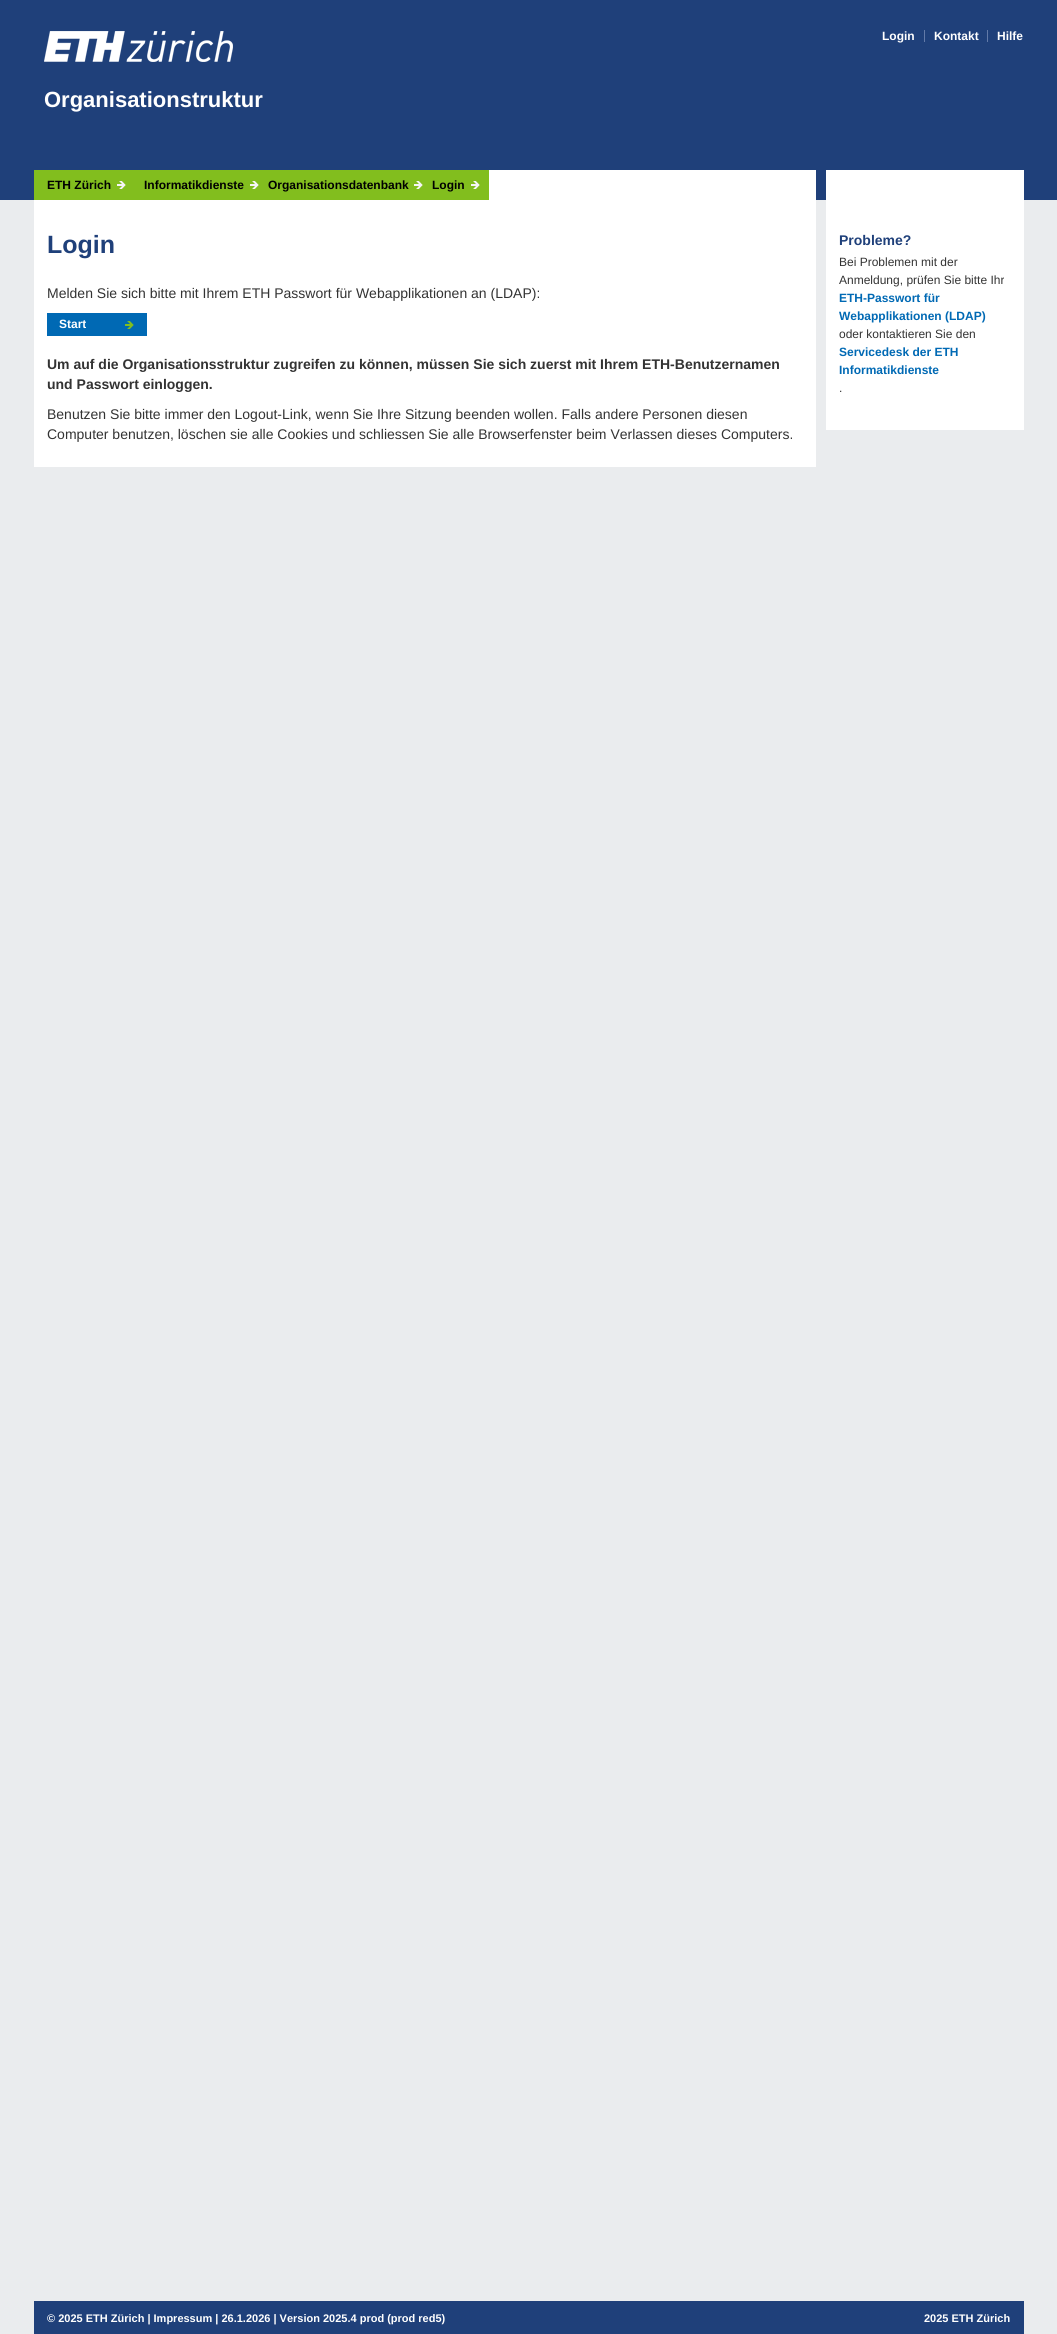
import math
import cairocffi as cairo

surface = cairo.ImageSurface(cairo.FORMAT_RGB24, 1057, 2334)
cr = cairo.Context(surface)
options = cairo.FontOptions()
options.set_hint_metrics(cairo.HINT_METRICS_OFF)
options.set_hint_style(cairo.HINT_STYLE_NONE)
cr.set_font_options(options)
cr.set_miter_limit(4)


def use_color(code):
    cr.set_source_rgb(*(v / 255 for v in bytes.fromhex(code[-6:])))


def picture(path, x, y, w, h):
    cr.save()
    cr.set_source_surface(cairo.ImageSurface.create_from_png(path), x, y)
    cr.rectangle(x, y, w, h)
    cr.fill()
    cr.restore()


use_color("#eaecee")
cr.paint()
use_color("#1f407a")
cr.rectangle(0, 0, 1057, 200)
cr.fill()
picture("img1.png", 44, 31, 189, 31)
use_color("#627aa8")
cr.rectangle(924, 30, 1, 12)
cr.fill()
cr.select_font_face("Liberation Sans", cairo.FONT_SLANT_NORMAL, cairo.FONT_WEIGHT_BOLD)
cr.set_font_size(12)
use_color("#ffffff")
cr.move_to(882, 40)
cr.show_text("Login")
use_color("#627aa8")
cr.rectangle(987, 30, 1, 12)
cr.fill()
use_color("#ffffff")
cr.move_to(934, 40)
cr.show_text("Kontakt")
cr.move_to(997, 40)
cr.show_text("Hilfe")
cr.set_font_size(22)
cr.move_to(44, 107)
cr.show_text("Organisationstruktur")
cr.rectangle(34, 170, 782, 297)
cr.fill()
use_color("#82be1e")
cr.rectangle(34, 170, 455, 30)
cr.fill()
picture("img2.png", 117, 181, 9, 8)
cr.set_font_size(12)
use_color("#000000")
cr.move_to(47, 189)
cr.show_text("ETH Zürich")
picture("img2.png", 250, 181, 9, 8)
cr.move_to(144, 189)
cr.show_text("Informatikdienste")
picture("img2.png", 414, 181, 9, 8)
cr.move_to(268, 189)
cr.show_text("Organisationsdatenbank")
picture("img2.png", 471, 181, 9, 8)
cr.move_to(432, 189)
cr.show_text("Login")
cr.set_font_size(25)
use_color("#1f407a")
cr.move_to(47, 253)
cr.show_text("Login")
cr.select_font_face("Liberation Sans")
cr.set_font_size(14)
use_color("#333333")
cr.move_to(47, 298)
cr.show_text("Melden Sie sich bitte mit Ihrem ETH Passwort für Webapplikationen an (LDAP):")
use_color("#0069b4")
cr.rectangle(47, 313, 100, 23)
cr.fill()
picture("img3.png", 125, 321, 9, 8)
cr.select_font_face("Liberation Sans", cairo.FONT_SLANT_NORMAL, cairo.FONT_WEIGHT_BOLD)
cr.set_font_size(12)
use_color("#ffffff")
cr.move_to(59, 328)
cr.show_text("Start")
cr.set_font_size(14)
use_color("#333333")
cr.move_to(47, 369)
cr.show_text("Um auf die Organisationsstruktur zugreifen zu können, müssen Sie sich zuerst mit Ihrem ETH-Benutzernamen")
cr.move_to(47, 389)
cr.show_text("und Passwort einloggen.")
cr.select_font_face("Liberation Sans")
cr.move_to(47, 419)
cr.show_text("Benutzen Sie bitte immer den Logout-Link, wenn Sie Ihre Sitzung beenden wollen. Falls andere Personen diesen")
cr.move_to(47, 439)
cr.show_text("Computer benutzen, löschen sie alle Cookies und schliessen Sie alle Browserfenster beim Verlassen dieses Computers.")
use_color("#ffffff")
cr.rectangle(826, 170, 198, 260)
cr.fill()
cr.select_font_face("Liberation Sans", cairo.FONT_SLANT_NORMAL, cairo.FONT_WEIGHT_BOLD)
use_color("#1f407a")
cr.move_to(839, 245)
cr.show_text("Probleme?")
cr.select_font_face("Liberation Sans")
cr.set_font_size(12)
use_color("#333333")
cr.move_to(839, 266)
cr.show_text("Bei Problemen mit der")
cr.move_to(839, 284)
cr.show_text("Anmeldung, prüfen Sie bitte Ihr")
cr.select_font_face("Liberation Sans", cairo.FONT_SLANT_NORMAL, cairo.FONT_WEIGHT_BOLD)
use_color("#0069b4")
cr.move_to(839, 302)
cr.show_text("ETH-Passwort für")
cr.move_to(839, 320)
cr.show_text("Webapplikationen (LDAP)")
cr.select_font_face("Liberation Sans")
use_color("#333333")
cr.move_to(839, 338)
cr.show_text("oder kontaktieren Sie den")
cr.select_font_face("Liberation Sans", cairo.FONT_SLANT_NORMAL, cairo.FONT_WEIGHT_BOLD)
use_color("#0069b4")
cr.move_to(839, 356)
cr.show_text("Servicedesk der ETH")
cr.move_to(839, 374)
cr.show_text("Informatikdienste")
cr.select_font_face("Liberation Sans")
use_color("#333333")
cr.move_to(839, 392)
cr.show_text(".")
use_color("#1f407a")
cr.rectangle(34, 2301, 990, 33)
cr.fill()
cr.select_font_face("Liberation Sans", cairo.FONT_SLANT_NORMAL, cairo.FONT_WEIGHT_BOLD)
cr.set_font_size(11)
use_color("#ffffff")
cr.move_to(47, 2322)
cr.show_text("© 2025 ETH Zürich | Impressum | 26.1.2026 | Version 2025.4 prod (prod red5)")
cr.move_to(924, 2322)
cr.show_text("2025 ETH Zürich")
surface.write_to_png("result.png")
